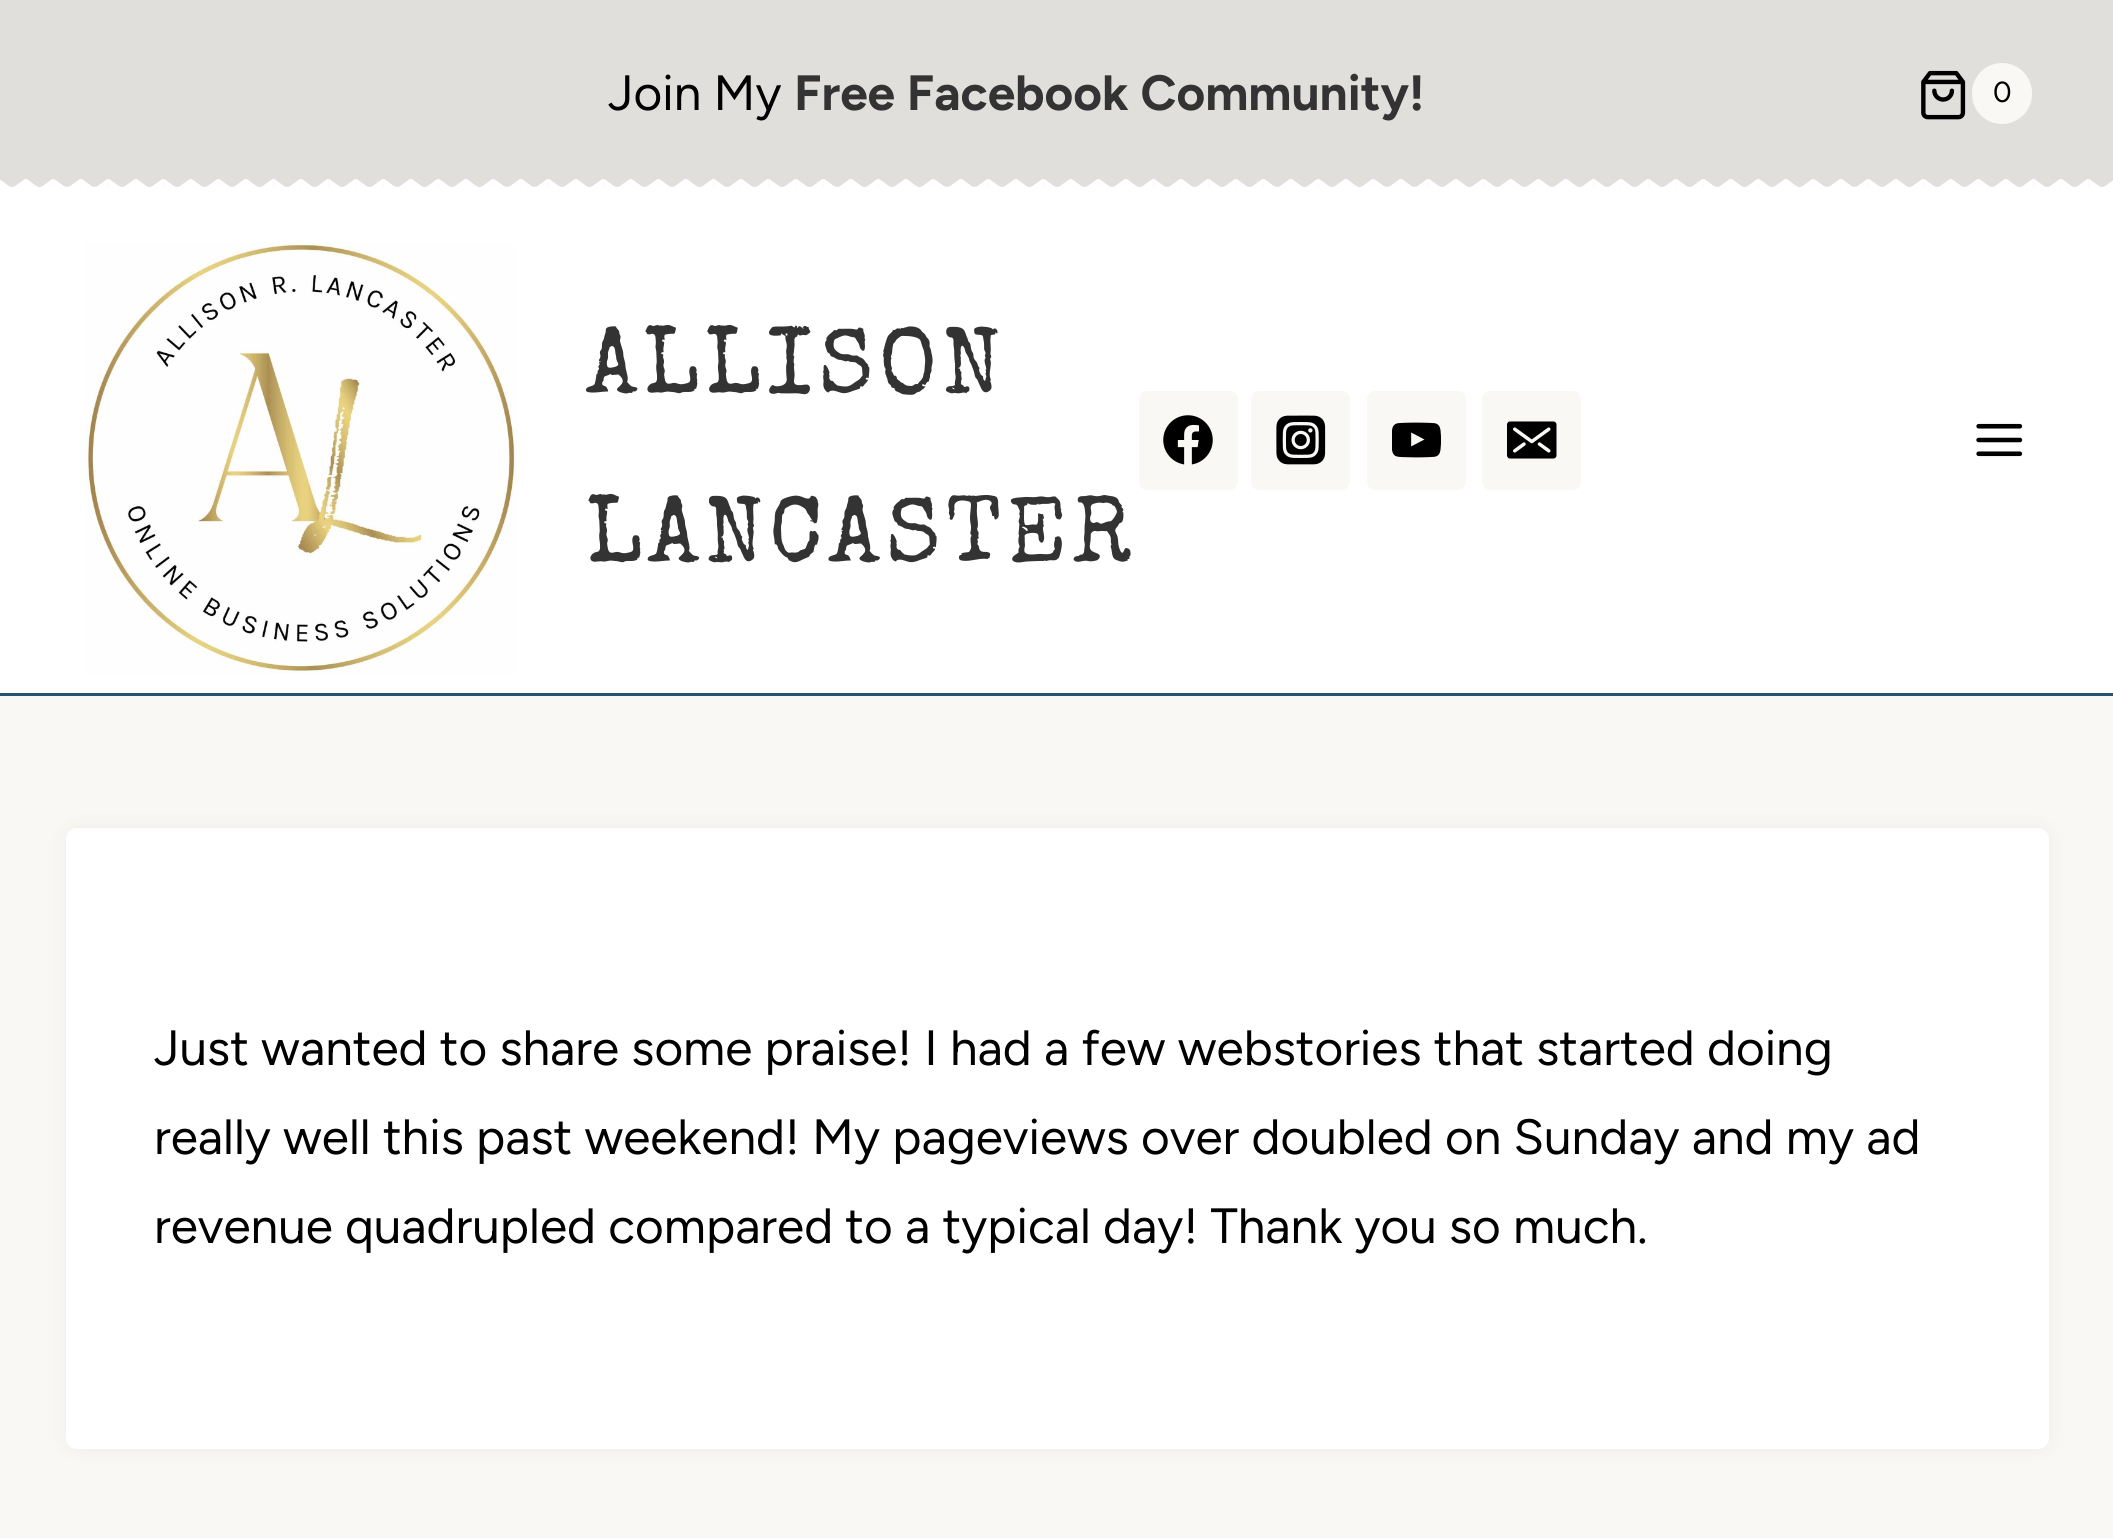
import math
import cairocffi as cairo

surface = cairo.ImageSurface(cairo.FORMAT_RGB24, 2113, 1538)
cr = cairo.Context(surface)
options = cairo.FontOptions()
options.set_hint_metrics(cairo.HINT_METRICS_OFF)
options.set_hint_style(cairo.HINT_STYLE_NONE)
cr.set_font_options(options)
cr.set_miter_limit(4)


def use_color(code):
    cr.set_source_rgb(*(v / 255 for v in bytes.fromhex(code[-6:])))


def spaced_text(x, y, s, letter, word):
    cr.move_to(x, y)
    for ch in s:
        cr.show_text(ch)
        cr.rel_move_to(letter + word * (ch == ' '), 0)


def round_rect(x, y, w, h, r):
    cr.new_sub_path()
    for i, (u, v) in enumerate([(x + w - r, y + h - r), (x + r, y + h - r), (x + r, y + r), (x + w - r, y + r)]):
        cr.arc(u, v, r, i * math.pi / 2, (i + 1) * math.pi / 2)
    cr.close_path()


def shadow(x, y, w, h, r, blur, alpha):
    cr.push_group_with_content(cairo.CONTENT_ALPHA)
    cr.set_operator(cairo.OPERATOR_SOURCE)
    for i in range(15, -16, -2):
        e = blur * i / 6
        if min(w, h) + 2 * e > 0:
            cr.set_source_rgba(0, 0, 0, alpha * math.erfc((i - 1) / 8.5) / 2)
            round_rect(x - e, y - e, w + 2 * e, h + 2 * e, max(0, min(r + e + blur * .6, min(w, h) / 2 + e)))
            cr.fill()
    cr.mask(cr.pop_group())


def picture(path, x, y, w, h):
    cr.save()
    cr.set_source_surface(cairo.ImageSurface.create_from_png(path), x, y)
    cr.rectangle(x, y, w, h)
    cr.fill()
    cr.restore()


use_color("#faf8f4")
cr.paint()
use_color("#ffffff")
cr.rectangle(0, 187, 2113, 506)
cr.fill()
use_color("#e1dfdc")
cr.rectangle(0, 0, 2113, 187)
cr.fill()
picture("img1.png", 0, 179, 2113, 8)
cr.select_font_face("Figtree Light")
cr.set_font_size(49.5)
use_color("#000000")
cr.move_to(608, 110)
cr.show_text("Join My")
cr.select_font_face("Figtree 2 Light")
use_color("#333333")
cr.move_to(794, 110)
cr.show_text("Free Facebook Community!")
picture("img2.png", 1921, 70, 45, 50)
use_color("#faf8f4")
round_rect(1972, 63, 60, 61, 30)
cr.fill()
cr.select_font_face("Figtree Light")
cr.set_font_size(29)
use_color("#000000")
cr.move_to(1993, 102)
cr.show_text("0")
use_color("#285173")
cr.rectangle(0, 693, 2113, 3)
cr.fill()
picture("img3.png", 85, 242, 432, 432)
cr.select_font_face("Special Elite")
cr.set_font_size(93.5)
use_color("#333333")
spaced_text(586, 392, "ALLISON", 5.5, 0)
spaced_text(586, 561, "LANCASTER", 5.5, 0)
use_color("#faf8f4")
round_rect(1139, 391, 99, 99, 8)
cr.fill()
picture("img4.png", 1163, 415, 50, 50)
round_rect(1251, 391, 99, 99, 8)
cr.fill()
picture("img5.png", 1276, 415, 50, 50)
round_rect(1367, 391, 99, 99, 8)
cr.fill()
picture("img6.png", 1392, 422, 49, 36)
round_rect(1482, 391, 99, 99, 8)
cr.fill()
picture("img7.png", 1507, 421, 50, 38)
picture("img8.png", 1976, 423, 47, 34)
use_color("#000000")
shadow(66, 828, 1983, 621, 11, 9.5, 0.05)
use_color("#ffffff")
round_rect(66, 828, 1983, 621, 11)
cr.fill()
cr.select_font_face("Figtree Light")
cr.set_font_size(49.5)
use_color("#000000")
cr.move_to(154, 1065)
cr.show_text("Just wanted to share some praise! I had a few webstories that started doing")
cr.move_to(154, 1154)
cr.show_text("really well this past weekend! My pageviews over doubled on Sunday and my ad")
cr.move_to(154, 1243)
cr.show_text("revenue quadrupled compared to a typical day! Thank you so much.")
surface.write_to_png("result.png")
